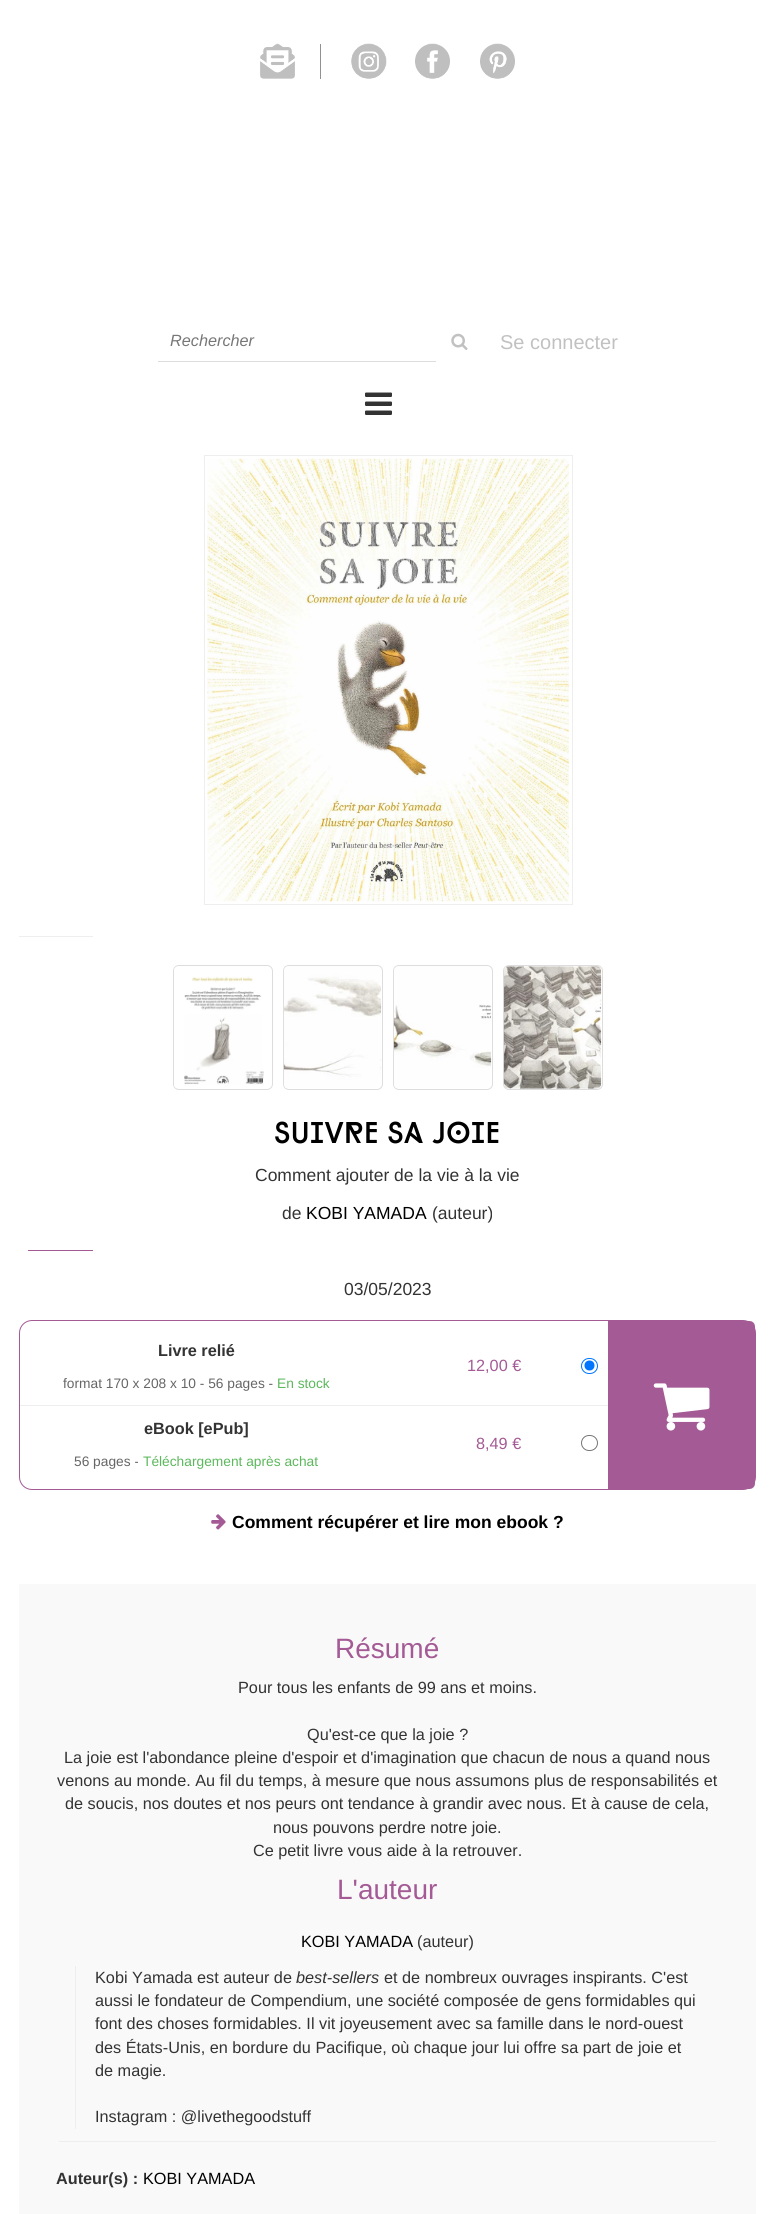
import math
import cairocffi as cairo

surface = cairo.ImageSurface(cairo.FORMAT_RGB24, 774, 2214)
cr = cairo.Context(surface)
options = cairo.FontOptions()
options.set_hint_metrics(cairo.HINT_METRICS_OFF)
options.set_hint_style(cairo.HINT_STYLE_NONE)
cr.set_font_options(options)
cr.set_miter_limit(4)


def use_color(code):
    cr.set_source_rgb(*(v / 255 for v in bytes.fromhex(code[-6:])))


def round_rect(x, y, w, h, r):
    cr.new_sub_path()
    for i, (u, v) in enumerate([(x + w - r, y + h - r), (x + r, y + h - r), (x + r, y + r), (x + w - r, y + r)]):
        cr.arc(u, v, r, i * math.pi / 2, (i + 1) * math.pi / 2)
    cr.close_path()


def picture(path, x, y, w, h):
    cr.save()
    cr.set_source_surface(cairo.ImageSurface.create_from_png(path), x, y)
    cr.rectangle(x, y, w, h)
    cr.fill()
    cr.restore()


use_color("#ffffff")
cr.paint()
picture("img1.png", 260, 43, 35, 36)
use_color("#919191")
cr.rectangle(320, 44, 1, 35)
cr.fill()
picture("img2.png", 351, 43, 36, 36)
picture("img3.png", 415, 43, 35, 36)
picture("img4.png", 480, 43, 35, 36)
use_color("#dddddd")
cr.rectangle(158, 361, 278, 1)
cr.fill()
cr.select_font_face("Liberation Sans", cairo.FONT_SLANT_ITALIC)
cr.set_font_size(16.25)
use_color("#777777")
cr.move_to(170, 346)
cr.show_text("Rechercher")
picture("img5.png", 451, 333, 17, 17)
cr.select_font_face("Liberation Sans")
cr.set_font_size(20)
use_color("#c1c1c1")
cr.move_to(500, 349)
cr.show_text("Se connecter")
picture("img6.png", 365, 392, 27, 23)
cr.rectangle(204.5, 455.5, 368, 449)
use_color("#eeeeee")
cr.set_line_width(1)
cr.stroke()
picture("img7.png", 207, 458, 362, 444)
cr.rectangle(19, 936, 74, 1)
cr.fill()
round_rect(173.5, 965.5, 99, 124, 5.5)
use_color("#dddddd")
cr.stroke()
picture("img8.png", 174, 966, 90, 122)
round_rect(283.5, 965.5, 99, 124, 5.5)
cr.stroke()
picture("img9.png", 283, 966, 99, 122)
round_rect(393.5, 965.5, 99, 124, 5.5)
cr.stroke()
picture("img10.png", 393, 966, 99, 122)
round_rect(503.5, 965.5, 99, 124, 5.5)
cr.stroke()
picture("img11.png", 503, 966, 99, 123)
cr.select_font_face("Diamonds", cairo.FONT_SLANT_NORMAL, cairo.FONT_WEIGHT_BOLD)
cr.set_font_size(30)
use_color("#000000")
cr.move_to(274, 1143)
cr.show_text("Suivre sa joie")
cr.select_font_face("Liberation Sans")
cr.set_font_size(17.5)
use_color("#333333")
cr.move_to(255, 1181)
cr.show_text("Comment ajouter de la vie à la vie")
cr.move_to(282, 1219)
cr.show_text("de")
use_color("#000000")
cr.move_to(306, 1219)
cr.show_text("KOBI YAMADA")
use_color("#333333")
cr.move_to(432, 1219)
cr.show_text("(auteur)")
use_color("#a45a95")
cr.rectangle(28, 1250, 65, 1)
cr.fill()
use_color("#333333")
cr.move_to(344, 1295)
cr.show_text("03/05/2023")
round_rect(19.5, 1320.5, 736, 169, 12.5)
use_color("#a45a95")
cr.stroke()
use_color("#eeeeee")
cr.rectangle(20, 1405, 589, 1)
cr.fill()
cr.select_font_face("Liberation Sans", cairo.FONT_SLANT_NORMAL, cairo.FONT_WEIGHT_BOLD)
cr.set_font_size(16.25)
use_color("#333333")
cr.move_to(158, 1356)
cr.show_text("Livre relié")
cr.select_font_face("Liberation Sans")
cr.set_font_size(13.75)
use_color("#666666")
cr.move_to(63, 1388)
cr.show_text("format 170 x 208 x 10 - 56 pages -")
use_color("#5cb85c")
cr.move_to(277, 1388)
cr.show_text("En stock")
cr.set_font_size(16.25)
use_color("#a45a95")
cr.move_to(467, 1371)
cr.show_text("12,00 €")
round_rect(581.5, 1358.5, 16, 15, 7.5)
use_color("#0075ff")
cr.stroke()
cr.arc(589.5, 1365.5, 5, 0, 2 * math.pi)
cr.fill()
cr.select_font_face("Liberation Sans", cairo.FONT_SLANT_NORMAL, cairo.FONT_WEIGHT_BOLD)
use_color("#333333")
cr.move_to(144, 1434)
cr.show_text("eBook [ePub]")
cr.select_font_face("Liberation Sans")
cr.set_font_size(13.75)
use_color("#666666")
cr.move_to(74, 1466)
cr.show_text("56 pages -")
use_color("#5cb85c")
cr.move_to(143, 1466)
cr.show_text("Téléchargement après achat")
cr.set_font_size(16.25)
use_color("#a45a95")
cr.move_to(476, 1449)
cr.show_text("8,49 €")
round_rect(581.5, 1435.5, 16, 15, 7.5)
use_color("#767676")
cr.stroke()
use_color("#dddddd")
cr.new_path()
cr.move_to(608, 1321)
cr.line_to(750, 1321)
cr.curve_to(753, 1321, 755, 1323, 755, 1326)
cr.line_to(755, 1484)
cr.curve_to(755, 1487, 753, 1489, 750, 1489)
cr.line_to(608, 1489)
cr.close_path()
cr.fill()
use_color("#a45a95")
cr.new_path()
cr.move_to(608, 1321)
cr.line_to(749, 1321)
cr.curve_to(752.5, 1321, 755, 1323.5, 755, 1327)
cr.line_to(755, 1483)
cr.curve_to(755, 1486.5, 752.5, 1489, 749, 1489)
cr.line_to(608, 1489)
cr.close_path()
cr.fill()
picture("img12.png", 653, 1383, 57, 48)
picture("img13.png", 211, 1514, 15, 16)
cr.select_font_face("Liberation Sans", cairo.FONT_SLANT_NORMAL, cairo.FONT_WEIGHT_BOLD)
cr.set_font_size(17.5)
use_color("#000000")
cr.move_to(232, 1528)
cr.show_text("Comment récupérer et lire mon ebook ?")
use_color("#f9f9f9")
cr.rectangle(19, 1584, 737, 630)
cr.fill()
cr.select_font_face("Liberation Sans")
cr.set_font_size(28)
use_color("#a45a95")
cr.move_to(335, 1658)
cr.show_text("Résumé")
cr.set_font_size(16.25)
use_color("#333333")
cr.move_to(238, 1693)
cr.show_text("Pour tous les enfants de 99 ans et moins.")
cr.move_to(307, 1740)
cr.show_text("Qu'est-ce que la joie ?")
cr.move_to(64, 1763)
cr.show_text("La joie est l'abondance pleine d'espoir et d'imagination que chacun de nous a quand nous")
cr.move_to(57, 1786)
cr.show_text("venons au monde. Au fil du temps, à mesure que nous assumons plus de responsabilités et")
cr.move_to(65, 1809)
cr.show_text("de soucis, nos doutes et nos peurs ont tendance à grandir avec nous. Et à cause de cela,")
cr.move_to(273, 1833)
cr.show_text("nous pouvons perdre notre joie.")
cr.move_to(253, 1856)
cr.show_text("Ce petit livre vous aide à la retrouver.")
cr.set_font_size(28)
use_color("#a45a95")
cr.move_to(337, 1899)
cr.show_text("L'auteur")
use_color("#eeeeee")
cr.rectangle(59, 2141, 657, 1)
cr.fill()
cr.set_font_size(16.25)
use_color("#000000")
cr.move_to(301, 1947)
cr.show_text("KOBI YAMADA")
use_color("#333333")
cr.move_to(417, 1947)
cr.show_text("(auteur)")
use_color("#eeeeee")
cr.rectangle(75, 1966, 1, 163)
cr.fill()
use_color("#333333")
cr.move_to(95, 1983)
cr.show_text("Kobi Yamada est auteur de")
cr.select_font_face("Liberation Sans", cairo.FONT_SLANT_ITALIC)
cr.move_to(296, 1983)
cr.show_text("best-sellers")
cr.select_font_face("Liberation Sans")
cr.move_to(384, 1983)
cr.show_text("et de nombreux ouvrages inspirants. C'est")
cr.move_to(95, 2006)
cr.show_text("aussi le fondateur de Compendium, une société composée de gens formidables qui")
cr.move_to(95, 2029)
cr.show_text("font des choses formidables. Il vit joyeusement avec sa famille dans le nord-ouest")
cr.move_to(95, 2053)
cr.show_text("des États-Unis, en bordure du Pacifique, où chaque jour lui offre sa part de joie et")
cr.move_to(95, 2076)
cr.show_text("de magie.")
cr.move_to(95, 2122)
cr.show_text("Instagram : @livethegoodstuff")
cr.select_font_face("Liberation Sans", cairo.FONT_SLANT_NORMAL, cairo.FONT_WEIGHT_BOLD)
cr.move_to(56, 2184)
cr.show_text("Auteur(s) :")
cr.select_font_face("Liberation Sans")
use_color("#000000")
cr.move_to(143, 2184)
cr.show_text("KOBI YAMADA")
surface.write_to_png("result.png")
